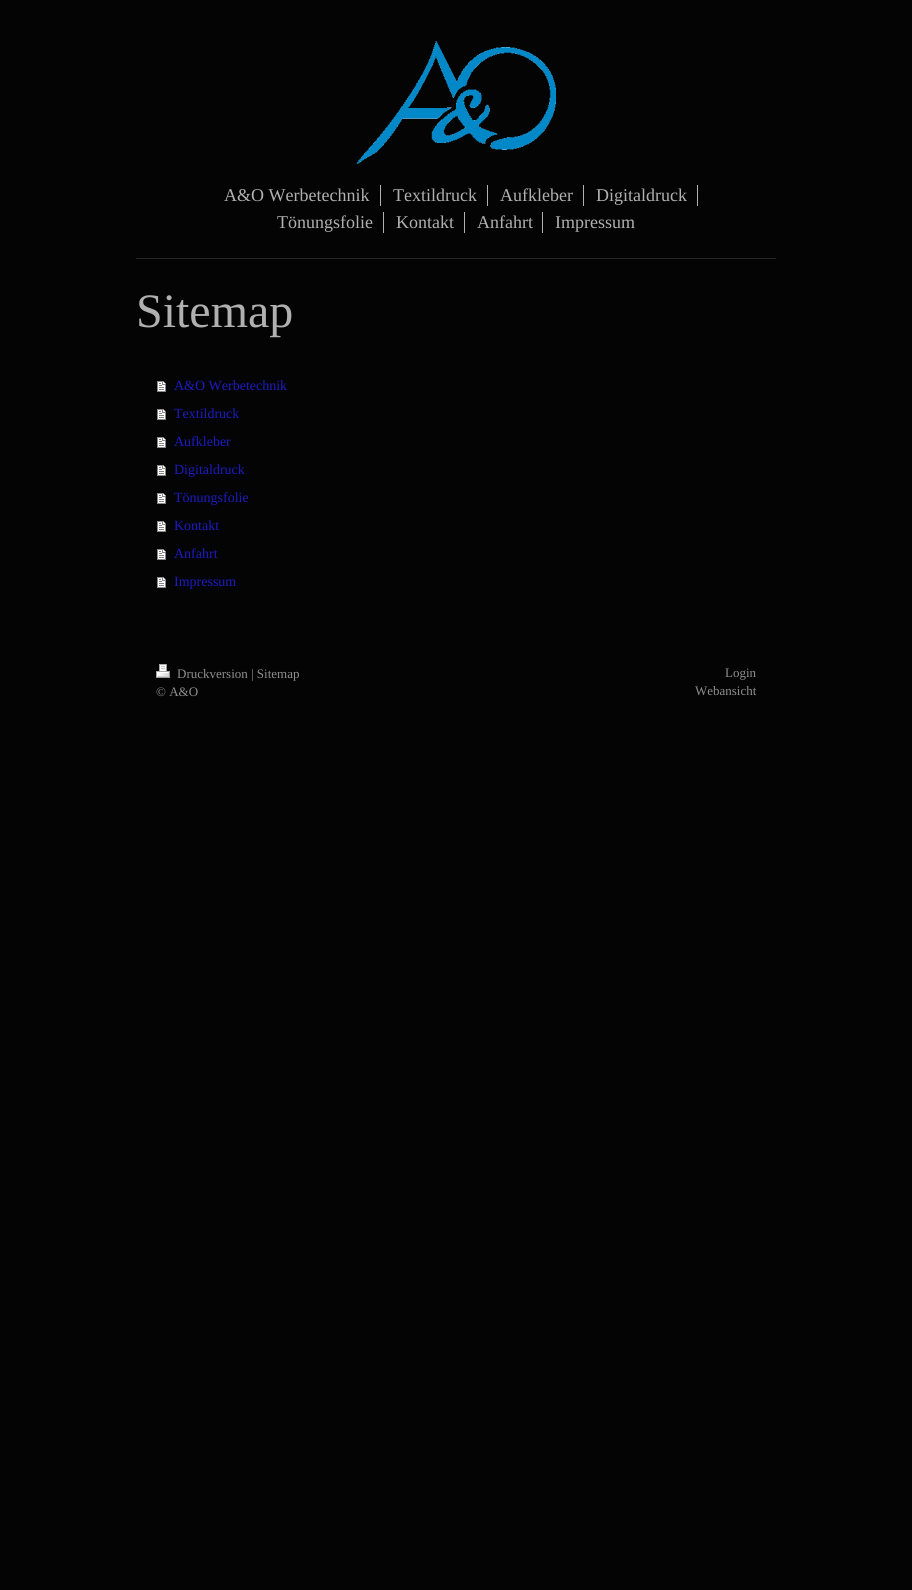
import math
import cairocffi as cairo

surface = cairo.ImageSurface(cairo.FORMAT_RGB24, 912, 1590)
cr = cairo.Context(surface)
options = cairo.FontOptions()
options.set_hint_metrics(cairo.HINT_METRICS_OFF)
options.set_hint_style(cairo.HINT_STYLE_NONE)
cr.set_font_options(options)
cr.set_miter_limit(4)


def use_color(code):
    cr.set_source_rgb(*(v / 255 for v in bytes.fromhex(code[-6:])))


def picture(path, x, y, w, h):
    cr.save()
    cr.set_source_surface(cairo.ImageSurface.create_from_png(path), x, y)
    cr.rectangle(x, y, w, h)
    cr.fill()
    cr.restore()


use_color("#040404")
cr.paint()
picture("img1.png", 356, 41, 200, 123)
use_color("#262626")
cr.rectangle(136, 258, 640, 1)
cr.fill()
use_color("#b0b0b0")
cr.rectangle(380, 185, 1, 21)
cr.fill()
cr.select_font_face("Liberation Serif")
cr.set_font_size(18)
cr.move_to(224, 201)
cr.show_text("A&O Werbetechnik")
cr.rectangle(487, 185, 1, 21)
cr.fill()
cr.move_to(393, 201)
cr.show_text("Textildruck")
cr.rectangle(583, 185, 1, 21)
cr.fill()
cr.move_to(500, 201)
cr.show_text("Aufkleber")
cr.rectangle(697, 185, 1, 21)
cr.fill()
cr.move_to(596, 201)
cr.show_text("Digitaldruck")
cr.rectangle(383, 212, 1, 21)
cr.fill()
cr.move_to(277, 228)
cr.show_text("Tönungsfolie")
cr.rectangle(464, 212, 1, 21)
cr.fill()
cr.move_to(396, 228)
cr.show_text("Kontakt")
cr.rectangle(542, 212, 1, 21)
cr.fill()
cr.move_to(477, 228)
cr.show_text("Anfahrt")
cr.move_to(555, 228)
cr.show_text("Impressum")
cr.set_font_size(48)
cr.move_to(136, 327)
cr.show_text("Sitemap")
picture("img2.png", 157, 381, 9, 11)
cr.set_font_size(14)
use_color("#1c1bc2")
cr.move_to(174, 390)
cr.show_text("A&O Werbetechnik")
picture("img2.png", 157, 409, 9, 11)
cr.move_to(174, 418)
cr.show_text("Textildruck")
picture("img2.png", 157, 437, 9, 11)
cr.move_to(174, 446)
cr.show_text("Aufkleber")
picture("img2.png", 157, 465, 9, 11)
cr.move_to(174, 474)
cr.show_text("Digitaldruck")
picture("img2.png", 157, 493, 9, 11)
cr.move_to(174, 502)
cr.show_text("Tönungsfolie")
picture("img2.png", 157, 521, 9, 11)
cr.move_to(174, 530)
cr.show_text("Kontakt")
picture("img2.png", 157, 549, 9, 11)
cr.move_to(174, 558)
cr.show_text("Anfahrt")
picture("img2.png", 157, 577, 9, 11)
cr.move_to(174, 586)
cr.show_text("Impressum")
picture("img3.png", 156, 664, 14, 14)
cr.set_font_size(13)
use_color("#8e8e8e")
cr.move_to(177, 678)
cr.show_text("Druckversion | Sitemap")
cr.move_to(156, 696)
cr.show_text("© A&O")
cr.move_to(725, 677)
cr.show_text("Login")
cr.move_to(695, 695)
cr.show_text("Webansicht")
surface.write_to_png("result.png")
